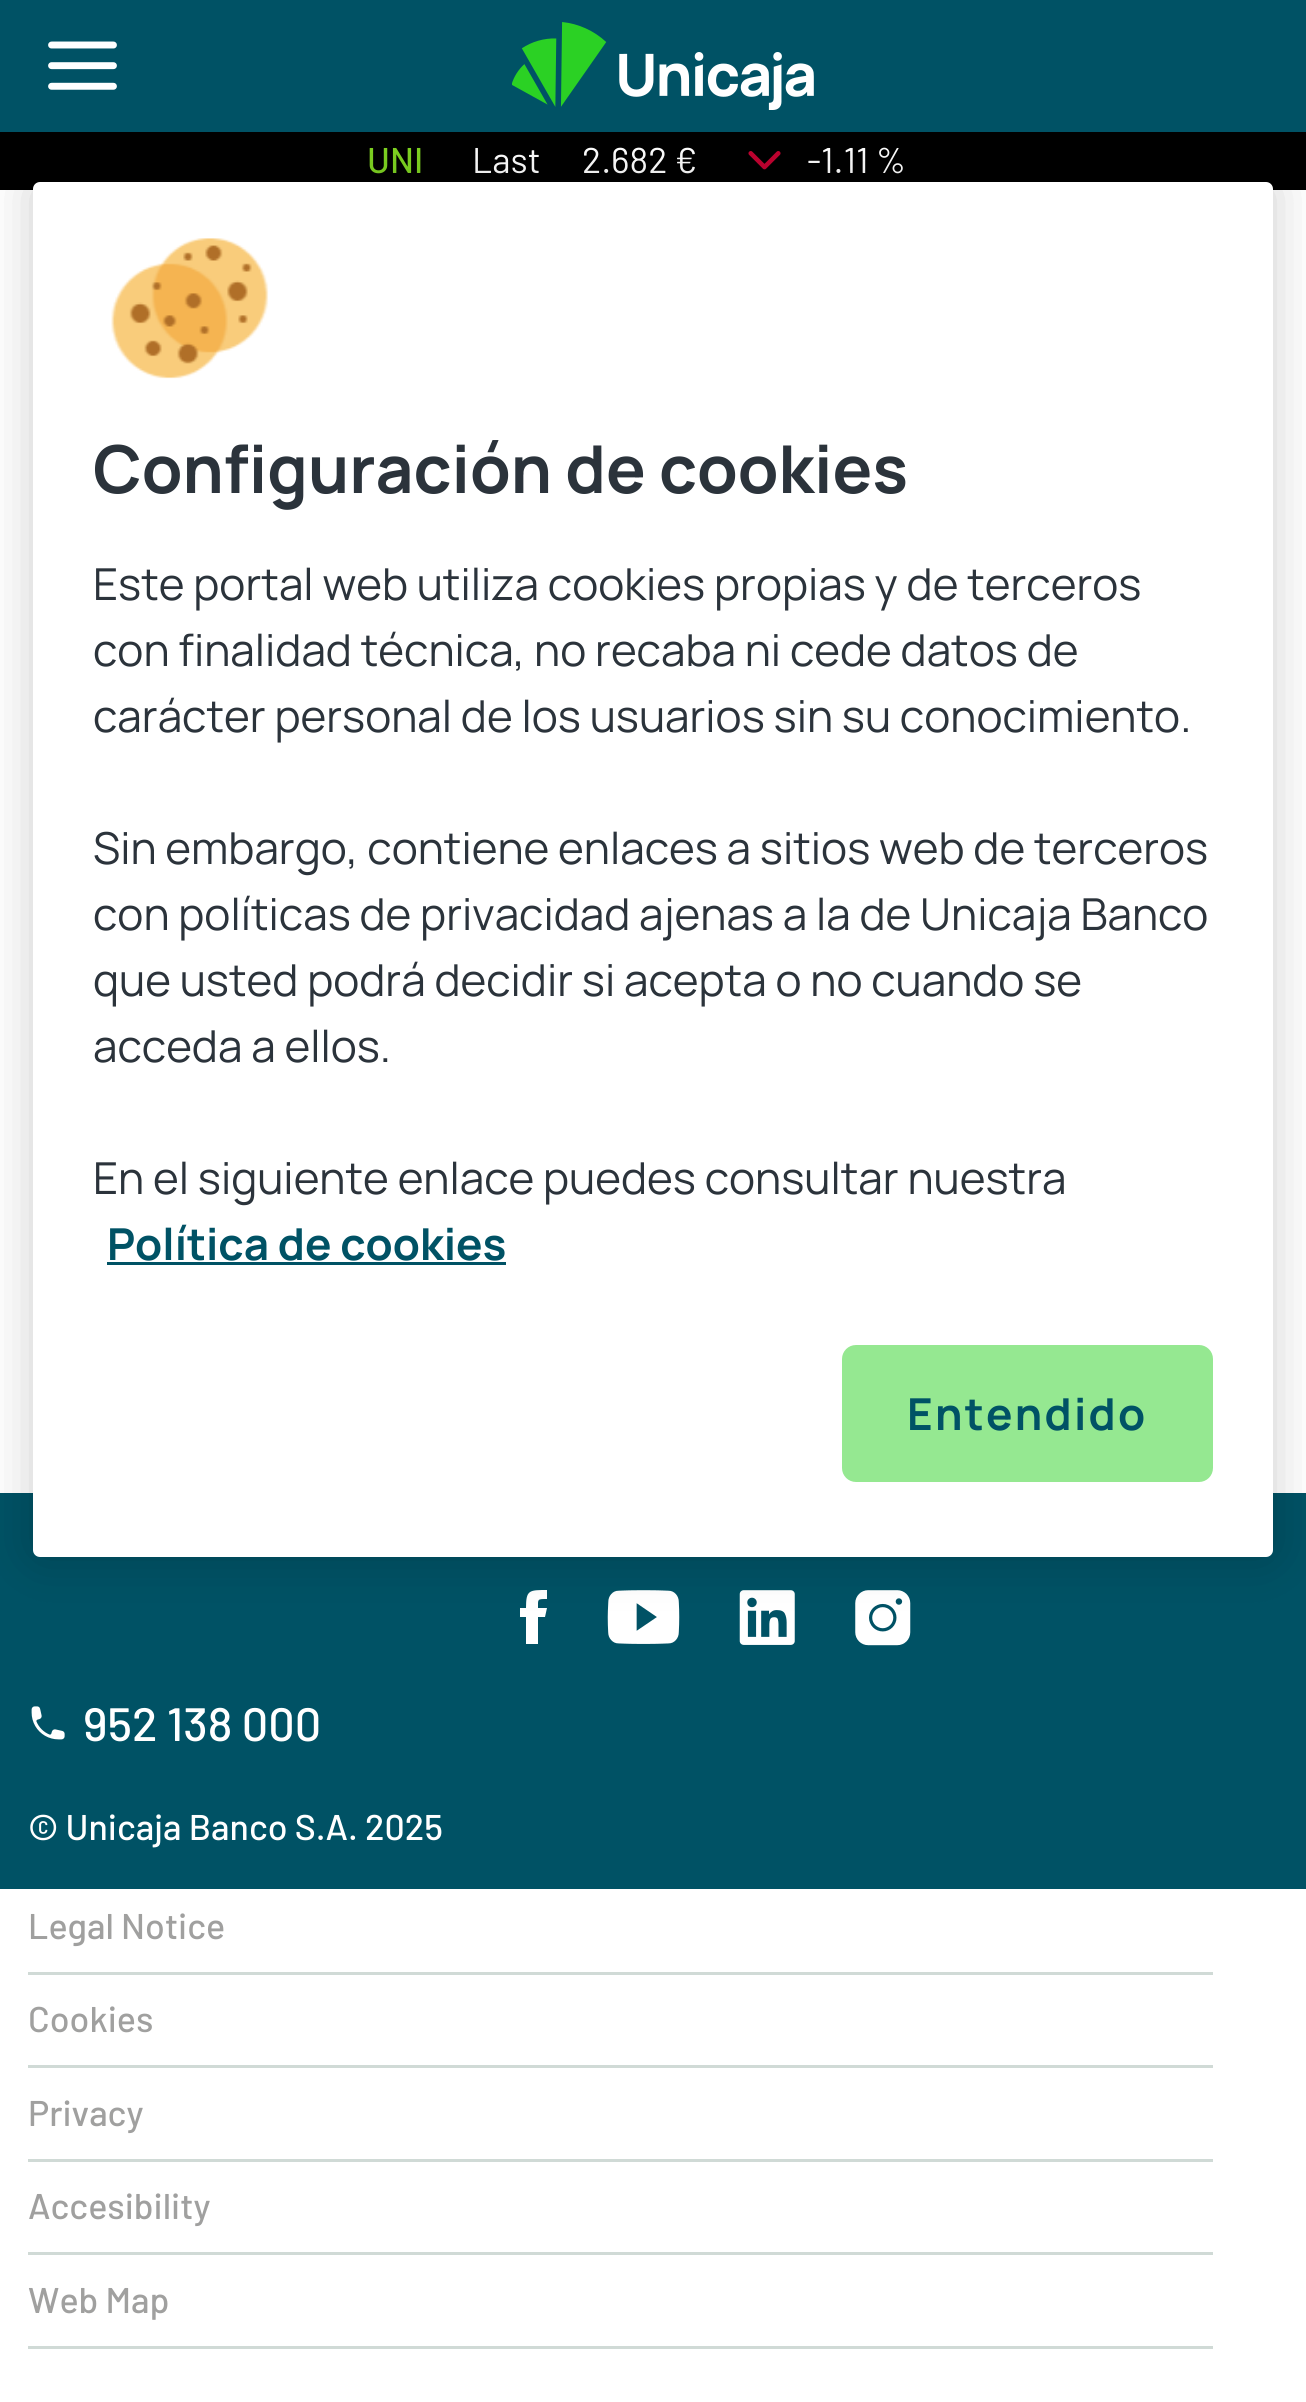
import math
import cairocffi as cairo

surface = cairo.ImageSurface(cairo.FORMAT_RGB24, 1306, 2402)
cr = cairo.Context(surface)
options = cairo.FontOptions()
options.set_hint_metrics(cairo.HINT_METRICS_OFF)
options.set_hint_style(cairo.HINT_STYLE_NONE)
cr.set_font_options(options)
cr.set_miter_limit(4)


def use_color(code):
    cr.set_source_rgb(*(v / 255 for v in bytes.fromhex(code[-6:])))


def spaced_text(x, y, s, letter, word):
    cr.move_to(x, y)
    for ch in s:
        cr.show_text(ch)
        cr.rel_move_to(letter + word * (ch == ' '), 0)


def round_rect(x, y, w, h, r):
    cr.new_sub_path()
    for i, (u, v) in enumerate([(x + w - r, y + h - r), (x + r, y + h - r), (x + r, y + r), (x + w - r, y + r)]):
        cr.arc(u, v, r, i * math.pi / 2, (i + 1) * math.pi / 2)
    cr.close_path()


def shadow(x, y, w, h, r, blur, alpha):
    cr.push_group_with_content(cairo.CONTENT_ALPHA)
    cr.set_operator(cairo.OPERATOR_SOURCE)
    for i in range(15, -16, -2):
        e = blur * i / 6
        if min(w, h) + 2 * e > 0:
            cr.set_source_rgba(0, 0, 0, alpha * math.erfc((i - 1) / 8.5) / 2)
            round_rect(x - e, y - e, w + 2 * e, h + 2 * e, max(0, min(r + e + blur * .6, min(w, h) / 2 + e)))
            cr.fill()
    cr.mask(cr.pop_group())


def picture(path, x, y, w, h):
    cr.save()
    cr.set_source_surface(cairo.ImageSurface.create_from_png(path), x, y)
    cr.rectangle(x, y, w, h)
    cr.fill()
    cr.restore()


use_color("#ffffff")
cr.paint()
use_color("#005265")
cr.rectangle(0, 0, 1306, 132)
cr.fill()
picture("img1.png", 48, 41, 69, 49)
picture("img2.png", 512, 22, 302, 88)
use_color("#000000")
cr.rectangle(0, 132, 1306, 58)
cr.fill()
cr.select_font_face("Barlow Medium")
cr.set_font_size(35.75)
use_color("#7ed321")
cr.move_to(367, 173)
cr.show_text("UNI")
cr.select_font_face("Barlow")
use_color("#ffffff")
cr.move_to(472, 173)
cr.show_text("Last")
cr.move_to(582, 173)
cr.show_text("2.682 €")
picture("img3.png", 748, 151, 33, 19)
cr.move_to(807, 173)
cr.show_text("-1.11 %")
use_color("#005265")
cr.rectangle(0, 1493, 1306, 396)
cr.fill()
use_color("#ffffff")
cr.new_path()
cr.move_to(538, 1608)
cr.line_to(547, 1608)
cr.line_to(545, 1617)
cr.line_to(538, 1617)
cr.line_to(538, 1644)
cr.line_to(526, 1644)
cr.line_to(526, 1617)
cr.line_to(520, 1617)
cr.line_to(520, 1608)
cr.line_to(526, 1608)
cr.curve_to(526, 1590, 529, 1590, 547, 1590)
cr.line_to(547, 1599)
cr.curve_to(537, 1599, 538, 1599, 538, 1608)
cr.close_path()
cr.fill()
picture("img5.png", 607, 1590, 73, 54)
picture("img6.png", 739, 1590, 56, 55)
picture("img7.png", 855, 1590, 56, 56)
use_color("#000000")
shadow(33, 182, 1240, 1375, 7, 25, 0.2)
use_color("#ffffff")
round_rect(33, 182, 1240, 1375, 7)
cr.fill()
picture("img4.png", 111, 238, 158, 141)
cr.select_font_face("Manrope", cairo.FONT_SLANT_NORMAL, cairo.FONT_WEIGHT_BOLD)
cr.set_font_size(66)
use_color("#2b333b")
cr.move_to(93, 493)
cr.show_text("Configuración de cookies")
cr.select_font_face("Manrope")
cr.set_font_size(44)
cr.move_to(93, 600)
cr.show_text("Este portal web utiliza cookies propias y de terceros")
cr.move_to(93, 666)
cr.show_text("con finalidad técnica, no recaba ni cede datos de")
cr.move_to(93, 732)
cr.show_text("carácter personal de los usuarios sin su conocimiento.")
cr.move_to(93, 864)
cr.show_text("Sin embargo, contiene enlaces a sitios web de terceros")
cr.move_to(93, 930)
cr.show_text("con políticas de privacidad ajenas a la de Unicaja Banco")
cr.move_to(93, 996)
cr.show_text("que usted podrá decidir si acepta o no cuando se")
cr.move_to(93, 1062)
cr.show_text("acceda a ellos.")
cr.move_to(93, 1194)
cr.show_text("En el siguiente enlace puedes consultar nuestra")
cr.select_font_face("Manrope", cairo.FONT_SLANT_NORMAL, cairo.FONT_WEIGHT_BOLD)
use_color("#005265")
cr.move_to(107, 1260)
cr.show_text("Política de cookies")
cr.rectangle(107, 1262, 399, 3)
cr.fill()
use_color("#95e891")
round_rect(843.5, 1346.5, 368, 134, 12.5)
cr.fill_preserve()
cr.set_line_width(3)
cr.stroke()
use_color("#005265")
spaced_text(907, 1430, "Entendido", 2.25, 0)
picture("img8.png", 31, 1706, 34, 34)
cr.select_font_face("Barlow Medium")
cr.set_font_size(46.75)
use_color("#ffffff")
cr.move_to(83, 1741)
cr.show_text("952 138 000")
cr.set_font_size(35.75)
cr.move_to(28, 1840)
cr.show_text("© Unicaja Banco S.A. 2025")
use_color("#d0dad6")
cr.rectangle(28, 1972, 1185, 3)
cr.fill()
use_color("#a0a09f")
cr.move_to(28, 1939)
cr.show_text("Legal Notice")
use_color("#d0dad6")
cr.rectangle(28, 2065, 1185, 3)
cr.fill()
use_color("#a0a09f")
cr.move_to(28, 2032)
cr.show_text("Cookies")
use_color("#d0dad6")
cr.rectangle(28, 2159, 1185, 3)
cr.fill()
use_color("#a0a09f")
cr.move_to(28, 2126)
cr.show_text("Privacy")
use_color("#d0dad6")
cr.rectangle(28, 2252, 1185, 3)
cr.fill()
use_color("#a0a09f")
cr.move_to(28, 2219)
cr.show_text("Accesibility")
use_color("#d0dad6")
cr.rectangle(28, 2346, 1185, 3)
cr.fill()
use_color("#a0a09f")
cr.move_to(28, 2313)
cr.show_text("Web Map")
surface.write_to_png("result.png")
